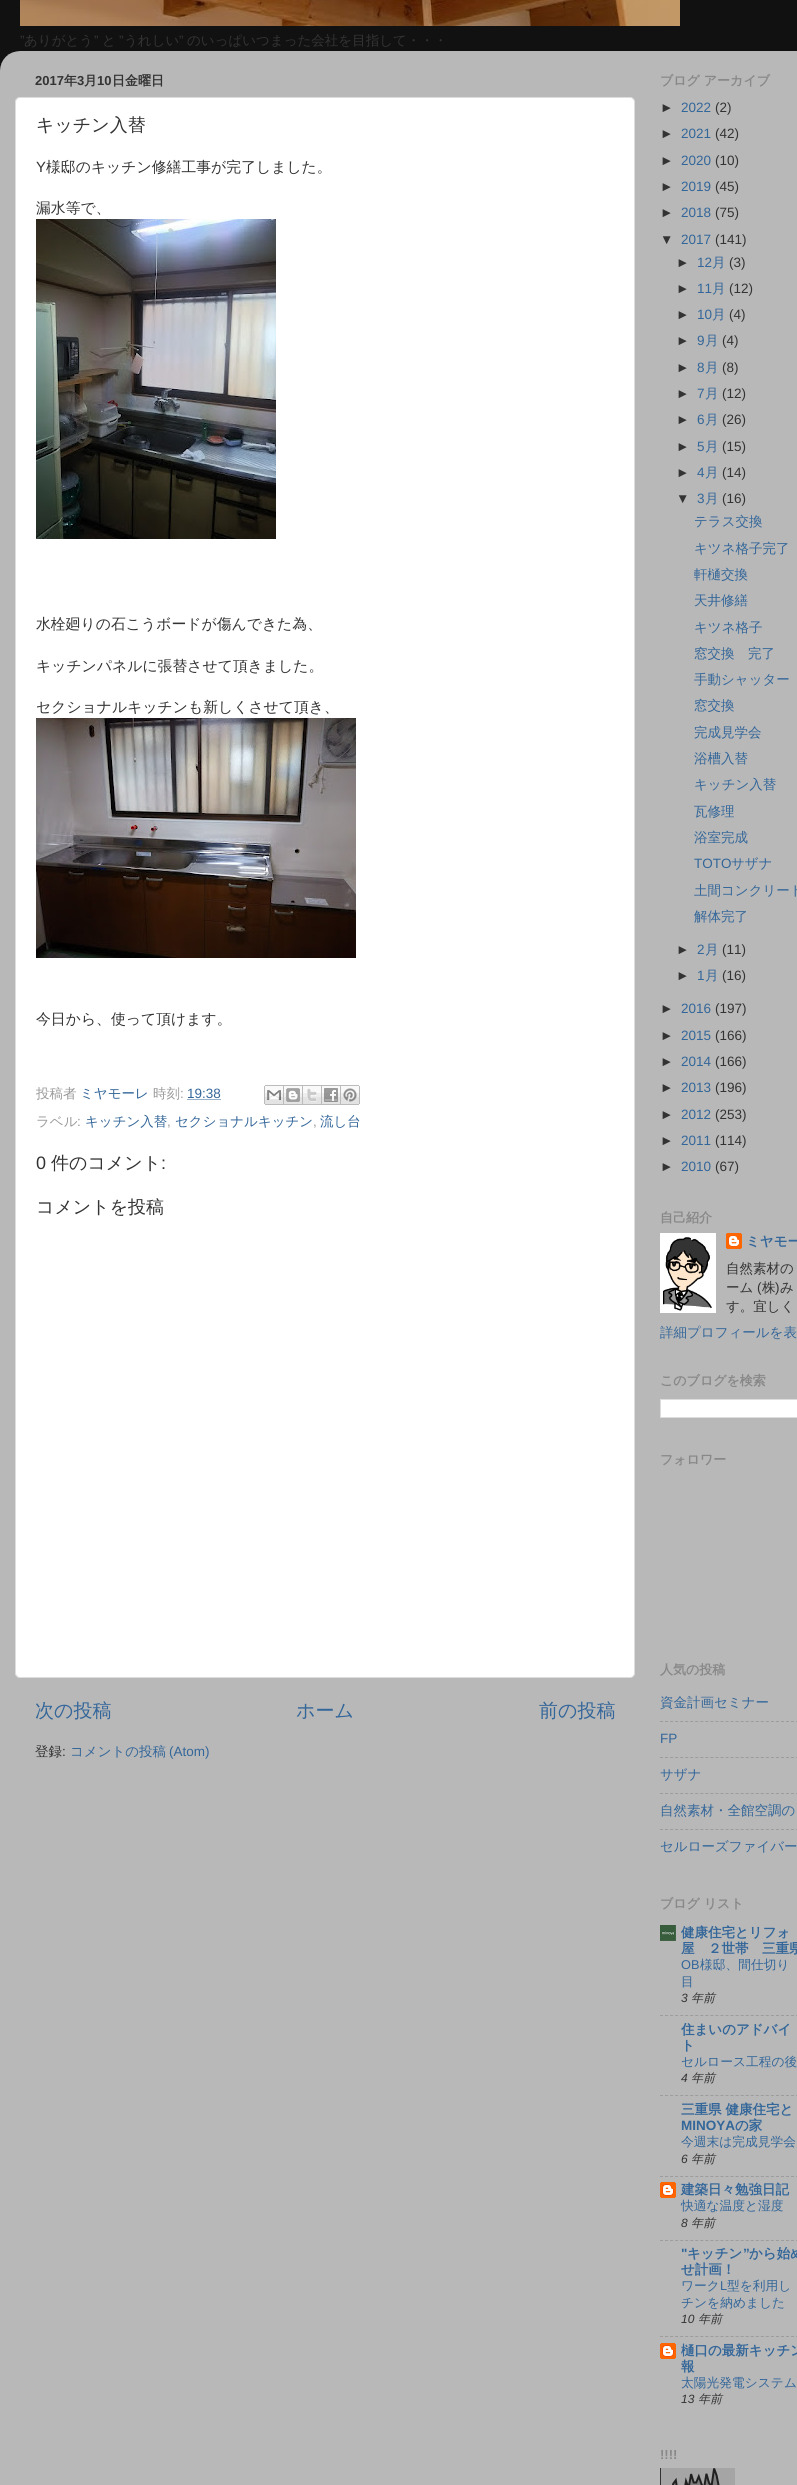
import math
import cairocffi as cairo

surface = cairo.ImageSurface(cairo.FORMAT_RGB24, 797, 2485)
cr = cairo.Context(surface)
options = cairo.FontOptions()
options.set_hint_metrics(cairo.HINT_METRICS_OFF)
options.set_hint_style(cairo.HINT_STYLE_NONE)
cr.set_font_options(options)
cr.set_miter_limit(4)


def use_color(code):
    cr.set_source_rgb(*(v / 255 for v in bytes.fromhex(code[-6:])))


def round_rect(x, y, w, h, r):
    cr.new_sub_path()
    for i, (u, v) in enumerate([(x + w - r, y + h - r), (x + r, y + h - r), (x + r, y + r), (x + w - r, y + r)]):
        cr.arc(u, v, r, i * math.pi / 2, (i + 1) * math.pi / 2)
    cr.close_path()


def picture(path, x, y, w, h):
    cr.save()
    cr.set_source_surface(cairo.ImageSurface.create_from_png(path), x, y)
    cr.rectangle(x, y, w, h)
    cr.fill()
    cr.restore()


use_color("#111111")
cr.paint()
picture("img1.png", 20, 0, 660, 26)
cr.select_font_face("Liberation Sans")
cr.set_font_size(13.5)
use_color("#333333")
cr.move_to(20, 45)
cr.show_text("”")
cr.select_font_face("WenQuanYi Zen Hei Medium")
cr.move_to(24, 45)
cr.show_text("ありがとう")
cr.select_font_face("Liberation Sans")
cr.move_to(94, 45)
cr.show_text("”")
cr.select_font_face("WenQuanYi Zen Hei Medium")
cr.move_to(102, 45)
cr.show_text("と")
cr.select_font_face("Liberation Sans")
cr.move_to(119, 45)
cr.show_text("”")
cr.select_font_face("WenQuanYi Zen Hei Medium")
cr.move_to(124, 45)
cr.show_text("うれしい")
cr.select_font_face("Liberation Sans")
cr.move_to(179, 45)
cr.show_text("”")
cr.select_font_face("WenQuanYi Zen Hei Medium")
cr.move_to(187, 45)
cr.show_text("のいっぱいつまった会社を目指して・・・")
picture("img2.png", 0, 51, 797, 2434)
cr.select_font_face("Liberation Sans", cairo.FONT_SLANT_NORMAL, cairo.FONT_WEIGHT_BOLD)
cr.set_font_size(13)
cr.move_to(35, 85)
cr.show_text("2017")
cr.select_font_face("WenQuanYi Zen Hei", cairo.FONT_SLANT_NORMAL, cairo.FONT_WEIGHT_BOLD)
cr.move_to(64, 85)
cr.show_text("年")
cr.select_font_face("Liberation Sans", cairo.FONT_SLANT_NORMAL, cairo.FONT_WEIGHT_BOLD)
cr.move_to(77, 85)
cr.show_text("3")
cr.select_font_face("WenQuanYi Zen Hei", cairo.FONT_SLANT_NORMAL, cairo.FONT_WEIGHT_BOLD)
cr.move_to(84, 85)
cr.show_text("月")
cr.select_font_face("Liberation Sans", cairo.FONT_SLANT_NORMAL, cairo.FONT_WEIGHT_BOLD)
cr.move_to(97, 85)
cr.show_text("10")
cr.select_font_face("WenQuanYi Zen Hei", cairo.FONT_SLANT_NORMAL, cairo.FONT_WEIGHT_BOLD)
cr.move_to(112, 85)
cr.show_text("日金曜日")
use_color("#ffffff")
round_rect(15.5, 97.5, 619, 1580, 4.5)
cr.fill_preserve()
use_color("#dddddd")
cr.set_line_width(1)
cr.stroke()
cr.select_font_face("WenQuanYi Zen Hei Medium")
cr.set_font_size(18)
use_color("#333333")
cr.move_to(36, 131)
cr.show_text("キッチン入替")
cr.select_font_face("Liberation Sans")
cr.set_font_size(14.85)
cr.move_to(36, 172)
cr.show_text("Y")
cr.select_font_face("WenQuanYi Zen Hei Medium")
cr.move_to(46, 172)
cr.show_text("様邸のキッチン修繕工事が完了しました。")
cr.move_to(36, 213)
cr.show_text("漏水等で、")
picture("img3.png", 36, 219, 240, 320)
cr.move_to(36, 629)
cr.show_text("水栓廻りの石こうボードが傷んできた為、")
cr.move_to(36, 671)
cr.show_text("キッチンパネルに張替させて頂きました。")
cr.move_to(36, 712)
cr.show_text("セクショナルキッチンも新しくさせて頂き、")
picture("img4.png", 36, 718, 320, 240)
cr.move_to(36, 1024)
cr.show_text("今日から、使って頂けます。")
cr.set_font_size(13.5)
use_color("#999999")
cr.move_to(36, 1098)
cr.show_text("投稿者")
use_color("#336699")
cr.move_to(80, 1098)
cr.show_text("ミヤモーレ")
use_color("#999999")
cr.move_to(153, 1098)
cr.show_text("時刻")
cr.select_font_face("Liberation Sans")
cr.move_to(180, 1098)
cr.show_text(":")
use_color("#336699")
cr.move_to(187, 1098)
cr.show_text("19:38")
cr.new_path()
cr.move_to(187.5, 1099.5)
cr.line_to(221, 1099.5)
cr.set_dash([1, 1])
cr.stroke()
picture("img5.png", 264, 1085, 20, 20)
picture("img6.png", 284, 1085, 19, 20)
picture("img7.png", 303, 1085, 19, 20)
picture("img8.png", 322, 1085, 19, 20)
picture("img9.png", 341, 1085, 19, 20)
cr.select_font_face("WenQuanYi Zen Hei Medium")
use_color("#999999")
cr.move_to(36, 1126)
cr.show_text("ラベル")
cr.select_font_face("Liberation Sans")
cr.move_to(77, 1126)
cr.show_text(":")
cr.select_font_face("WenQuanYi Zen Hei Medium")
use_color("#336699")
cr.move_to(85, 1126)
cr.show_text("キッチン入替")
cr.select_font_face("Liberation Sans")
use_color("#999999")
cr.move_to(167, 1126)
cr.show_text(",")
cr.select_font_face("WenQuanYi Zen Hei Medium")
use_color("#336699")
cr.move_to(175, 1126)
cr.show_text("セクショナルキッチン")
cr.select_font_face("Liberation Sans")
use_color("#999999")
cr.move_to(313, 1126)
cr.show_text(",")
cr.select_font_face("WenQuanYi Zen Hei Medium")
use_color("#336699")
cr.move_to(320, 1126)
cr.show_text("流し台")
cr.select_font_face("Liberation Sans")
cr.set_font_size(18)
use_color("#333333")
cr.move_to(36, 1169)
cr.show_text("0")
cr.select_font_face("WenQuanYi Zen Hei Medium")
cr.move_to(51, 1169)
cr.show_text("件のコメント")
cr.select_font_face("Liberation Sans")
cr.move_to(161, 1169)
cr.show_text(":")
cr.select_font_face("WenQuanYi Zen Hei Medium")
cr.move_to(36, 1213)
cr.show_text("コメントを投稿")
cr.set_font_size(19)
use_color("#336699")
cr.move_to(35, 1717)
cr.show_text("次の投稿")
cr.move_to(296, 1717)
cr.show_text("ホーム")
cr.move_to(539, 1717)
cr.show_text("前の投稿")
cr.set_font_size(13.5)
use_color("#333333")
cr.move_to(35, 1756)
cr.show_text("登録")
cr.select_font_face("Liberation Sans")
cr.move_to(62, 1756)
cr.show_text(":")
cr.select_font_face("WenQuanYi Zen Hei Medium")
use_color("#336699")
cr.move_to(70, 1756)
cr.show_text("コメントの投稿")
cr.select_font_face("Liberation Sans")
cr.move_to(169, 1756)
cr.show_text("(Atom)")
cr.select_font_face("WenQuanYi Zen Hei", cairo.FONT_SLANT_NORMAL, cairo.FONT_WEIGHT_BOLD)
cr.set_font_size(13)
use_color("#888888")
cr.move_to(660, 85)
cr.show_text("ブログ アーカイブ")
cr.select_font_face("Liberation Sans")
cr.set_font_size(13.5)
use_color("#333333")
cr.move_to(660, 112)
cr.show_text("►")
use_color("#336699")
cr.move_to(681, 112)
cr.show_text("2022")
use_color("#333333")
cr.move_to(715, 112)
cr.show_text("(2)")
cr.move_to(660, 138)
cr.show_text("►")
use_color("#336699")
cr.move_to(681, 138)
cr.show_text("2021")
use_color("#333333")
cr.move_to(715, 138)
cr.show_text("(42)")
cr.move_to(660, 165)
cr.show_text("►")
use_color("#336699")
cr.move_to(681, 165)
cr.show_text("2020")
use_color("#333333")
cr.move_to(715, 165)
cr.show_text("(10)")
cr.move_to(660, 191)
cr.show_text("►")
use_color("#336699")
cr.move_to(681, 191)
cr.show_text("2019")
use_color("#333333")
cr.move_to(715, 191)
cr.show_text("(45)")
cr.move_to(660, 217)
cr.show_text("►")
use_color("#336699")
cr.move_to(681, 217)
cr.show_text("2018")
use_color("#333333")
cr.move_to(715, 217)
cr.show_text("(75)")
cr.move_to(660, 244)
cr.show_text("▼")
use_color("#336699")
cr.move_to(681, 244)
cr.show_text("2017")
use_color("#333333")
cr.move_to(715, 244)
cr.show_text("(141)")
cr.move_to(676, 267)
cr.show_text("►")
use_color("#336699")
cr.move_to(697, 267)
cr.show_text("12")
cr.select_font_face("WenQuanYi Zen Hei Medium")
cr.move_to(712, 267)
cr.show_text("月")
cr.select_font_face("Liberation Sans")
use_color("#333333")
cr.move_to(729, 267)
cr.show_text("(3)")
cr.move_to(676, 293)
cr.show_text("►")
use_color("#336699")
cr.move_to(697, 293)
cr.show_text("11")
cr.select_font_face("WenQuanYi Zen Hei Medium")
cr.move_to(712, 293)
cr.show_text("月")
cr.select_font_face("Liberation Sans")
use_color("#333333")
cr.move_to(729, 293)
cr.show_text("(12)")
cr.move_to(676, 319)
cr.show_text("►")
use_color("#336699")
cr.move_to(697, 319)
cr.show_text("10")
cr.select_font_face("WenQuanYi Zen Hei Medium")
cr.move_to(712, 319)
cr.show_text("月")
cr.select_font_face("Liberation Sans")
use_color("#333333")
cr.move_to(729, 319)
cr.show_text("(4)")
cr.move_to(676, 345)
cr.show_text("►")
use_color("#336699")
cr.move_to(697, 345)
cr.show_text("9")
cr.select_font_face("WenQuanYi Zen Hei Medium")
cr.move_to(705, 345)
cr.show_text("月")
cr.select_font_face("Liberation Sans")
use_color("#333333")
cr.move_to(722, 345)
cr.show_text("(4)")
cr.move_to(676, 372)
cr.show_text("►")
use_color("#336699")
cr.move_to(697, 372)
cr.show_text("8")
cr.select_font_face("WenQuanYi Zen Hei Medium")
cr.move_to(705, 372)
cr.show_text("月")
cr.select_font_face("Liberation Sans")
use_color("#333333")
cr.move_to(722, 372)
cr.show_text("(8)")
cr.move_to(676, 398)
cr.show_text("►")
use_color("#336699")
cr.move_to(697, 398)
cr.show_text("7")
cr.select_font_face("WenQuanYi Zen Hei Medium")
cr.move_to(705, 398)
cr.show_text("月")
cr.select_font_face("Liberation Sans")
use_color("#333333")
cr.move_to(722, 398)
cr.show_text("(12)")
cr.move_to(676, 424)
cr.show_text("►")
use_color("#336699")
cr.move_to(697, 424)
cr.show_text("6")
cr.select_font_face("WenQuanYi Zen Hei Medium")
cr.move_to(705, 424)
cr.show_text("月")
cr.select_font_face("Liberation Sans")
use_color("#333333")
cr.move_to(722, 424)
cr.show_text("(26)")
cr.move_to(676, 451)
cr.show_text("►")
use_color("#336699")
cr.move_to(697, 451)
cr.show_text("5")
cr.select_font_face("WenQuanYi Zen Hei Medium")
cr.move_to(705, 451)
cr.show_text("月")
cr.select_font_face("Liberation Sans")
use_color("#333333")
cr.move_to(722, 451)
cr.show_text("(15)")
cr.move_to(676, 477)
cr.show_text("►")
use_color("#336699")
cr.move_to(697, 477)
cr.show_text("4")
cr.select_font_face("WenQuanYi Zen Hei Medium")
cr.move_to(705, 477)
cr.show_text("月")
cr.select_font_face("Liberation Sans")
use_color("#333333")
cr.move_to(722, 477)
cr.show_text("(14)")
cr.move_to(676, 503)
cr.show_text("▼")
use_color("#336699")
cr.move_to(697, 503)
cr.show_text("3")
cr.select_font_face("WenQuanYi Zen Hei Medium")
cr.move_to(705, 503)
cr.show_text("月")
cr.select_font_face("Liberation Sans")
use_color("#333333")
cr.move_to(722, 503)
cr.show_text("(16)")
cr.select_font_face("WenQuanYi Zen Hei Medium")
use_color("#336699")
cr.move_to(694, 526)
cr.show_text("テラス交換")
cr.move_to(694, 553)
cr.show_text("キツネ格子完了")
cr.move_to(694, 579)
cr.show_text("軒樋交換")
cr.move_to(694, 605)
cr.show_text("天井修繕")
cr.move_to(694, 632)
cr.show_text("キツネ格子")
cr.move_to(694, 658)
cr.show_text("窓交換　完了")
cr.move_to(694, 684)
cr.show_text("手動シャッター")
cr.move_to(694, 710)
cr.show_text("窓交換")
cr.move_to(694, 737)
cr.show_text("完成見学会")
cr.move_to(694, 763)
cr.show_text("浴槽入替")
cr.move_to(694, 789)
cr.show_text("キッチン入替")
cr.move_to(694, 816)
cr.show_text("瓦修理")
cr.move_to(694, 842)
cr.show_text("浴室完成")
cr.select_font_face("Liberation Sans")
cr.move_to(694, 868)
cr.show_text("TOTO")
cr.select_font_face("WenQuanYi Zen Hei Medium")
cr.move_to(731, 868)
cr.show_text("サザナ")
cr.move_to(694, 895)
cr.show_text("土間コンクリート")
cr.move_to(694, 921)
cr.show_text("解体完了")
cr.select_font_face("Liberation Sans")
use_color("#333333")
cr.move_to(676, 954)
cr.show_text("►")
use_color("#336699")
cr.move_to(697, 954)
cr.show_text("2")
cr.select_font_face("WenQuanYi Zen Hei Medium")
cr.move_to(705, 954)
cr.show_text("月")
cr.select_font_face("Liberation Sans")
use_color("#333333")
cr.move_to(722, 954)
cr.show_text("(11)")
cr.move_to(676, 980)
cr.show_text("►")
use_color("#336699")
cr.move_to(697, 980)
cr.show_text("1")
cr.select_font_face("WenQuanYi Zen Hei Medium")
cr.move_to(705, 980)
cr.show_text("月")
cr.select_font_face("Liberation Sans")
use_color("#333333")
cr.move_to(722, 980)
cr.show_text("(16)")
cr.move_to(660, 1013)
cr.show_text("►")
use_color("#336699")
cr.move_to(681, 1013)
cr.show_text("2016")
use_color("#333333")
cr.move_to(715, 1013)
cr.show_text("(197)")
cr.move_to(660, 1040)
cr.show_text("►")
use_color("#336699")
cr.move_to(681, 1040)
cr.show_text("2015")
use_color("#333333")
cr.move_to(715, 1040)
cr.show_text("(166)")
cr.move_to(660, 1066)
cr.show_text("►")
use_color("#336699")
cr.move_to(681, 1066)
cr.show_text("2014")
use_color("#333333")
cr.move_to(715, 1066)
cr.show_text("(166)")
cr.move_to(660, 1092)
cr.show_text("►")
use_color("#336699")
cr.move_to(681, 1092)
cr.show_text("2013")
use_color("#333333")
cr.move_to(715, 1092)
cr.show_text("(196)")
cr.move_to(660, 1119)
cr.show_text("►")
use_color("#336699")
cr.move_to(681, 1119)
cr.show_text("2012")
use_color("#333333")
cr.move_to(715, 1119)
cr.show_text("(253)")
cr.move_to(660, 1145)
cr.show_text("►")
use_color("#336699")
cr.move_to(681, 1145)
cr.show_text("2011")
use_color("#333333")
cr.move_to(715, 1145)
cr.show_text("(114)")
cr.move_to(660, 1171)
cr.show_text("►")
use_color("#336699")
cr.move_to(681, 1171)
cr.show_text("2010")
use_color("#333333")
cr.move_to(715, 1171)
cr.show_text("(67)")
cr.select_font_face("WenQuanYi Zen Hei", cairo.FONT_SLANT_NORMAL, cairo.FONT_WEIGHT_BOLD)
cr.set_font_size(13)
use_color("#888888")
cr.move_to(660, 1222)
cr.show_text("自己紹介")
picture("img10.png", 660, 1233, 56, 80)
picture("img11.png", 726, 1233, 16, 16)
cr.set_font_size(13.5)
use_color("#336699")
cr.move_to(746, 1246)
cr.show_text("ミヤモー")
cr.select_font_face("WenQuanYi Zen Hei Medium")
use_color("#333333")
cr.move_to(726, 1273)
cr.show_text("自然素材の")
cr.move_to(726, 1292)
cr.show_text("ーム")
cr.select_font_face("Liberation Sans")
cr.move_to(757, 1292)
cr.show_text("(")
cr.select_font_face("WenQuanYi Zen Hei Medium")
cr.move_to(762, 1292)
cr.show_text("株")
cr.select_font_face("Liberation Sans")
cr.move_to(775, 1292)
cr.show_text(")")
cr.select_font_face("WenQuanYi Zen Hei Medium")
cr.move_to(780, 1292)
cr.show_text("み")
cr.move_to(726, 1311)
cr.show_text("す。宜しく")
use_color("#336699")
cr.move_to(660, 1337)
cr.show_text("詳細プロフィールを表")
cr.select_font_face("WenQuanYi Zen Hei", cairo.FONT_SLANT_NORMAL, cairo.FONT_WEIGHT_BOLD)
cr.set_font_size(13)
use_color("#888888")
cr.move_to(660, 1385)
cr.show_text("このブログを検索")
use_color("#ffffff")
cr.rectangle(660.5, 1399.5, 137, 18)
cr.fill_preserve()
use_color("#dddddd")
cr.set_dash([])
cr.stroke()
use_color("#888888")
cr.move_to(660, 1464)
cr.show_text("フォロワー")
cr.move_to(660, 1674)
cr.show_text("人気の投稿")
cr.select_font_face("WenQuanYi Zen Hei Medium")
cr.set_font_size(13.5)
use_color("#336699")
cr.move_to(660, 1707)
cr.show_text("資金計画セミナー")
cr.new_path()
cr.move_to(660, 1721.5)
cr.line_to(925, 1721.5)
use_color("#9c9c9c")
cr.set_dash([3, 2.04])
cr.stroke()
cr.select_font_face("Liberation Sans")
use_color("#336699")
cr.move_to(660, 1743)
cr.show_text("FP")
cr.new_path()
cr.move_to(660, 1757.5)
cr.line_to(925, 1757.5)
use_color("#9c9c9c")
cr.stroke()
cr.select_font_face("WenQuanYi Zen Hei Medium")
use_color("#336699")
cr.move_to(660, 1779)
cr.show_text("サザナ")
cr.new_path()
cr.move_to(660, 1793.5)
cr.line_to(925, 1793.5)
use_color("#9c9c9c")
cr.stroke()
use_color("#336699")
cr.move_to(660, 1815)
cr.show_text("自然素材・全館空調の")
cr.new_path()
cr.move_to(660, 1829.5)
cr.line_to(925, 1829.5)
use_color("#9c9c9c")
cr.stroke()
use_color("#336699")
cr.move_to(660, 1851)
cr.show_text("セルローズファイバー")
cr.select_font_face("WenQuanYi Zen Hei", cairo.FONT_SLANT_NORMAL, cairo.FONT_WEIGHT_BOLD)
cr.set_font_size(13)
use_color("#888888")
cr.move_to(660, 1908)
cr.show_text("ブログ リスト")
picture("img12.png", 660, 1925, 16, 16)
cr.set_font_size(13.5)
use_color("#336699")
cr.move_to(681, 1937)
cr.show_text("健康住宅とリフォ")
cr.move_to(681, 1953)
cr.show_text("屋　２世帯　三重県")
cr.select_font_face("Liberation Sans")
cr.set_font_size(12.75)
cr.move_to(681, 1969)
cr.show_text("OB")
cr.select_font_face("WenQuanYi Zen Hei Medium")
cr.move_to(700, 1969)
cr.show_text("様邸、間仕切り")
cr.move_to(681, 1986)
cr.show_text("目")
cr.select_font_face("Liberation Sans", cairo.FONT_SLANT_ITALIC)
cr.set_font_size(12)
use_color("#333333")
cr.move_to(681, 2002)
cr.show_text("3")
cr.select_font_face("WenQuanYi Zen Hei Medium", cairo.FONT_SLANT_ITALIC)
cr.move_to(691, 2002)
cr.show_text("年前")
cr.new_path()
cr.move_to(660, 2015.5)
cr.line_to(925, 2015.5)
use_color("#9c9c9c")
cr.stroke()
cr.select_font_face("WenQuanYi Zen Hei", cairo.FONT_SLANT_NORMAL, cairo.FONT_WEIGHT_BOLD)
cr.set_font_size(13.5)
use_color("#336699")
cr.move_to(681, 2034)
cr.show_text("住まいのアドバイ")
cr.move_to(681, 2050)
cr.show_text("ト")
cr.select_font_face("WenQuanYi Zen Hei Medium")
cr.set_font_size(12.75)
cr.move_to(681, 2066)
cr.show_text("セルロース工程の後")
cr.select_font_face("Liberation Sans", cairo.FONT_SLANT_ITALIC)
cr.set_font_size(12)
use_color("#333333")
cr.move_to(681, 2082)
cr.show_text("4")
cr.select_font_face("WenQuanYi Zen Hei Medium", cairo.FONT_SLANT_ITALIC)
cr.move_to(691, 2082)
cr.show_text("年前")
cr.new_path()
cr.move_to(660, 2095.5)
cr.line_to(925, 2095.5)
use_color("#9c9c9c")
cr.stroke()
cr.select_font_face("WenQuanYi Zen Hei", cairo.FONT_SLANT_NORMAL, cairo.FONT_WEIGHT_BOLD)
cr.set_font_size(13.5)
use_color("#336699")
cr.move_to(681, 2114)
cr.show_text("三重県 健康住宅と")
cr.select_font_face("Liberation Sans", cairo.FONT_SLANT_NORMAL, cairo.FONT_WEIGHT_BOLD)
cr.move_to(681, 2130)
cr.show_text("MINOYA")
cr.select_font_face("WenQuanYi Zen Hei", cairo.FONT_SLANT_NORMAL, cairo.FONT_WEIGHT_BOLD)
cr.move_to(735, 2130)
cr.show_text("の家")
cr.select_font_face("WenQuanYi Zen Hei Medium")
cr.set_font_size(12.75)
cr.move_to(681, 2146)
cr.show_text("今週末は完成見学会")
cr.select_font_face("Liberation Sans", cairo.FONT_SLANT_ITALIC)
cr.set_font_size(12)
use_color("#333333")
cr.move_to(681, 2163)
cr.show_text("6")
cr.select_font_face("WenQuanYi Zen Hei Medium", cairo.FONT_SLANT_ITALIC)
cr.move_to(691, 2163)
cr.show_text("年前")
cr.new_path()
cr.move_to(660, 2176.5)
cr.line_to(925, 2176.5)
use_color("#9c9c9c")
cr.stroke()
picture("img13.png", 660, 2182, 16, 16)
cr.select_font_face("WenQuanYi Zen Hei", cairo.FONT_SLANT_NORMAL, cairo.FONT_WEIGHT_BOLD)
cr.set_font_size(13.5)
use_color("#336699")
cr.move_to(681, 2194)
cr.show_text("建築日々勉強日記")
cr.select_font_face("WenQuanYi Zen Hei Medium")
cr.set_font_size(12.75)
cr.move_to(681, 2210)
cr.show_text("快適な温度と湿度")
cr.select_font_face("Liberation Sans", cairo.FONT_SLANT_ITALIC)
cr.set_font_size(12)
use_color("#333333")
cr.move_to(681, 2227)
cr.show_text("8")
cr.select_font_face("WenQuanYi Zen Hei Medium", cairo.FONT_SLANT_ITALIC)
cr.move_to(691, 2227)
cr.show_text("年前")
cr.new_path()
cr.move_to(660, 2240.5)
cr.line_to(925, 2240.5)
use_color("#9c9c9c")
cr.stroke()
cr.select_font_face("Liberation Sans", cairo.FONT_SLANT_NORMAL, cairo.FONT_WEIGHT_BOLD)
cr.set_font_size(13.5)
use_color("#336699")
cr.move_to(681, 2258)
cr.show_text("\"")
cr.select_font_face("WenQuanYi Zen Hei", cairo.FONT_SLANT_NORMAL, cairo.FONT_WEIGHT_BOLD)
cr.move_to(687, 2258)
cr.show_text("キッチン")
cr.select_font_face("Liberation Sans", cairo.FONT_SLANT_NORMAL, cairo.FONT_WEIGHT_BOLD)
cr.move_to(743, 2258)
cr.show_text("”")
cr.select_font_face("WenQuanYi Zen Hei", cairo.FONT_SLANT_NORMAL, cairo.FONT_WEIGHT_BOLD)
cr.move_to(749, 2258)
cr.show_text("から始め")
cr.move_to(681, 2274)
cr.show_text("せ計画！")
cr.select_font_face("WenQuanYi Zen Hei Medium")
cr.set_font_size(12.75)
cr.move_to(681, 2290)
cr.show_text("ワーク")
cr.select_font_face("Liberation Sans")
cr.move_to(720, 2290)
cr.show_text("L")
cr.select_font_face("WenQuanYi Zen Hei Medium")
cr.move_to(727, 2290)
cr.show_text("型を利用し")
cr.move_to(681, 2307)
cr.show_text("チンを納めました")
cr.select_font_face("Liberation Sans", cairo.FONT_SLANT_ITALIC)
cr.set_font_size(12)
use_color("#333333")
cr.move_to(681, 2323)
cr.show_text("10")
cr.select_font_face("WenQuanYi Zen Hei Medium", cairo.FONT_SLANT_ITALIC)
cr.move_to(698, 2323)
cr.show_text("年前")
cr.new_path()
cr.move_to(660, 2336.5)
cr.line_to(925, 2336.5)
use_color("#9c9c9c")
cr.stroke()
picture("img13.png", 660, 2343, 16, 16)
cr.select_font_face("WenQuanYi Zen Hei", cairo.FONT_SLANT_NORMAL, cairo.FONT_WEIGHT_BOLD)
cr.set_font_size(13.5)
use_color("#336699")
cr.move_to(681, 2355)
cr.show_text("樋口の最新キッチン")
cr.move_to(681, 2371)
cr.show_text("報")
cr.select_font_face("WenQuanYi Zen Hei Medium")
cr.set_font_size(12.75)
cr.move_to(681, 2387)
cr.show_text("太陽光発電システム")
cr.select_font_face("Liberation Sans", cairo.FONT_SLANT_ITALIC)
cr.set_font_size(12)
use_color("#333333")
cr.move_to(681, 2403)
cr.show_text("13")
cr.select_font_face("WenQuanYi Zen Hei Medium", cairo.FONT_SLANT_ITALIC)
cr.move_to(698, 2403)
cr.show_text("年前")
cr.select_font_face("Liberation Sans", cairo.FONT_SLANT_NORMAL, cairo.FONT_WEIGHT_BOLD)
cr.set_font_size(13)
use_color("#888888")
cr.move_to(660, 2459)
cr.show_text("!!!!")
picture("img14.png", 660, 2468, 75, 17)
surface.write_to_png("result.png")
